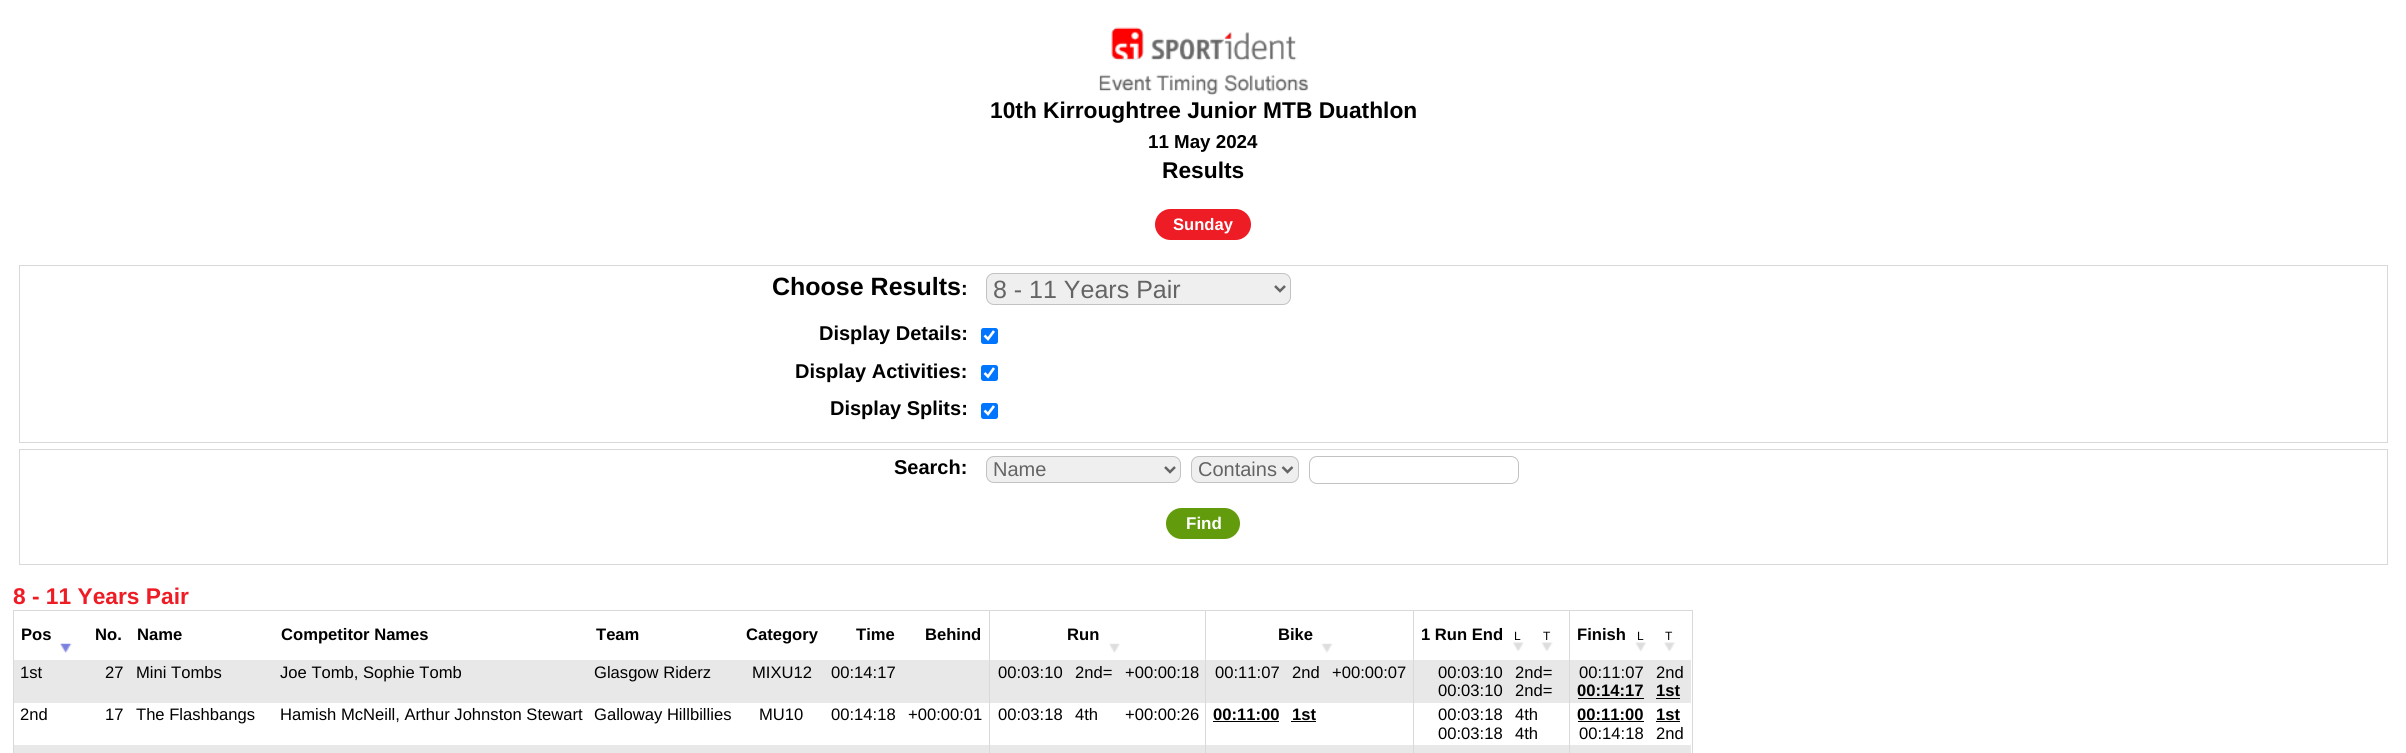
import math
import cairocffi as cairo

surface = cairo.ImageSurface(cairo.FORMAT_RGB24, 2406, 753)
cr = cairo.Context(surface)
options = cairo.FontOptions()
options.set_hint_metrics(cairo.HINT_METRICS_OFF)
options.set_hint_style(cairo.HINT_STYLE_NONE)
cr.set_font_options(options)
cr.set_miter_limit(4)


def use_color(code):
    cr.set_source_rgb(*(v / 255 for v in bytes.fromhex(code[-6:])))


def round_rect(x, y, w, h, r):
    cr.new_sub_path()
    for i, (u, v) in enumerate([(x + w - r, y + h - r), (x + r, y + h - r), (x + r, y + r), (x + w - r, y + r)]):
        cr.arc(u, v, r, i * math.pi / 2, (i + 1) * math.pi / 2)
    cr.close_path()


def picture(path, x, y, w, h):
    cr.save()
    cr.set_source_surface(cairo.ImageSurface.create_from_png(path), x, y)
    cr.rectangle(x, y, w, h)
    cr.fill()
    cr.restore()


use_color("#ffffff")
cr.paint()
picture("img1.png", 1099, 27, 210, 69)
cr.select_font_face("Liberation Sans", cairo.FONT_SLANT_NORMAL, cairo.FONT_WEIGHT_BOLD)
cr.set_font_size(22.75)
use_color("#000000")
cr.move_to(990, 118)
cr.show_text("10th Kirroughtree Junior MTB Duathlon")
cr.set_font_size(18.75)
cr.move_to(1148, 148)
cr.show_text("11 May 2024")
cr.set_font_size(22.75)
cr.move_to(1162, 178)
cr.show_text("Results")
use_color("#ee1c24")
round_rect(1155, 209, 96, 31, 15.5)
cr.fill()
cr.set_font_size(16.6)
use_color("#ffffff")
cr.move_to(1173, 230)
cr.show_text("Sunday")
cr.rectangle(19.5, 265.5, 2368, 177)
use_color("#d9d9d9")
cr.set_line_width(1)
cr.stroke()
cr.set_font_size(25)
use_color("#000000")
cr.move_to(772, 295)
cr.show_text("Choose Results")
cr.set_font_size(20)
cr.move_to(961, 295)
cr.show_text(":")
use_color("#efefef")
round_rect(986.5, 273.5, 304, 31, 7.5)
cr.fill_preserve()
use_color("#c2c2c2")
cr.stroke()
cr.new_path()
cr.move_to(1275, 286)
cr.line_to(1280, 291)
cr.line_to(1285, 286)
use_color("#656464")
cr.set_line_width(2.5)
cr.stroke()
cr.select_font_face("Liberation Sans")
cr.set_font_size(25)
cr.move_to(993, 298)
cr.show_text("8 - 11 Years Pair")
cr.select_font_face("Liberation Sans", cairo.FONT_SLANT_NORMAL, cairo.FONT_WEIGHT_BOLD)
cr.set_font_size(20)
use_color("#000000")
cr.move_to(819, 340)
cr.show_text("Display Details:")
use_color("#0075ff")
round_rect(981, 328, 17, 16, 2.5)
cr.fill()
cr.new_path()
cr.move_to(984.5, 335.5)
cr.line_to(988, 339)
cr.line_to(994, 331)
use_color("#ffffff")
cr.set_line_width(2.6)
cr.stroke()
use_color("#000000")
cr.move_to(795, 378)
cr.show_text("Display Activities:")
use_color("#0075ff")
round_rect(981, 365, 17, 16, 2.5)
cr.fill()
cr.new_path()
cr.move_to(984.5, 373)
cr.line_to(988, 376.5)
cr.line_to(994, 368)
use_color("#ffffff")
cr.stroke()
use_color("#000000")
cr.move_to(830, 415)
cr.show_text("Display Splits:")
use_color("#0075ff")
round_rect(981, 403, 17, 16, 2.5)
cr.fill()
cr.new_path()
cr.move_to(984.5, 410.5)
cr.line_to(988, 414)
cr.line_to(994, 406)
use_color("#ffffff")
cr.stroke()
cr.rectangle(19.5, 449.5, 2368, 115)
use_color("#d9d9d9")
cr.set_line_width(1)
cr.stroke()
use_color("#000000")
cr.move_to(894, 474)
cr.show_text("Search:")
use_color("#efefef")
round_rect(986.5, 456.5, 194, 26, 7.5)
cr.fill_preserve()
use_color("#c2c2c2")
cr.stroke()
cr.new_path()
cr.move_to(1165, 467)
cr.line_to(1170, 472)
cr.line_to(1175, 467)
use_color("#656464")
cr.set_line_width(2.5)
cr.stroke()
cr.select_font_face("Liberation Sans")
cr.move_to(993, 476)
cr.show_text("Name")
use_color("#efefef")
round_rect(1191.5, 456.5, 107, 26, 7.5)
cr.fill_preserve()
use_color("#c2c2c2")
cr.set_line_width(1)
cr.stroke()
cr.new_path()
cr.move_to(1282.5, 467)
cr.line_to(1287.5, 472)
cr.line_to(1292.5, 467)
use_color("#656464")
cr.set_line_width(2.5)
cr.stroke()
cr.move_to(1198, 476)
cr.show_text("Contains")
round_rect(1309.5, 456.5, 209, 27, 7.5)
use_color("#c2c2c2")
cr.set_line_width(1)
cr.stroke()
use_color("#629c0c")
round_rect(1166, 508, 74, 31, 15.5)
cr.fill()
cr.select_font_face("Liberation Sans", cairo.FONT_SLANT_NORMAL, cairo.FONT_WEIGHT_BOLD)
cr.set_font_size(17)
use_color("#ffffff")
cr.move_to(1186, 529)
cr.show_text("Find")
cr.set_font_size(22.75)
use_color("#ee1c24")
cr.move_to(13, 604)
cr.show_text("8 - 11 Years Pair")
cr.rectangle(13.5, 610.5, 1679, 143)
use_color("#d9d9d9")
cr.stroke()
cr.set_font_size(16.6)
use_color("#000000")
cr.move_to(21, 640)
cr.show_text("Pos")
picture("img2.png", 60, 643, 12, 10)
cr.move_to(95, 640)
cr.show_text("No.")
cr.move_to(137, 640)
cr.show_text("Name")
cr.move_to(281, 640)
cr.show_text("Competitor Names")
cr.move_to(596, 640)
cr.show_text("Team")
cr.move_to(746, 640)
cr.show_text("Category")
cr.move_to(856, 640)
cr.show_text("Time")
cr.move_to(925, 640)
cr.show_text("Behind")
use_color("#d9d9d9")
cr.rectangle(989, 611, 1, 49)
cr.fill()
use_color("#000000")
cr.move_to(1067, 640)
cr.show_text("Run")
picture("img3.png", 1109, 643, 11, 10)
use_color("#d9d9d9")
cr.rectangle(1205, 611, 1, 49)
cr.fill()
use_color("#000000")
cr.move_to(1278, 640)
cr.show_text("Bike")
picture("img4.png", 1321, 643, 12, 10)
use_color("#d9d9d9")
cr.rectangle(1413, 611, 1, 49)
cr.fill()
use_color("#000000")
cr.move_to(1421, 640)
cr.show_text("1 Run End")
picture("img5.png", 1513, 642, 11, 9)
cr.select_font_face("Liberation Sans")
cr.set_font_size(12)
cr.move_to(1514, 640)
cr.show_text("L")
picture("img6.png", 1541, 642, 12, 9)
cr.move_to(1543, 640)
cr.show_text("T")
use_color("#d9d9d9")
cr.rectangle(1569, 611, 1, 49)
cr.fill()
cr.select_font_face("Liberation Sans", cairo.FONT_SLANT_NORMAL, cairo.FONT_WEIGHT_BOLD)
cr.set_font_size(16.6)
use_color("#000000")
cr.move_to(1577, 640)
cr.show_text("Finish")
picture("img7.png", 1635, 642, 11, 10)
cr.select_font_face("Liberation Sans")
cr.set_font_size(12)
cr.move_to(1637, 640)
cr.show_text("L")
picture("img8.png", 1664, 642, 11, 10)
cr.move_to(1665, 640)
cr.show_text("T")
use_color("#e8e8e8")
cr.rectangle(14, 660, 1677, 43)
cr.fill()
cr.set_font_size(16.6)
use_color("#000000")
cr.move_to(20, 678)
cr.show_text("1st")
cr.move_to(105, 678)
cr.show_text("27")
cr.move_to(136, 678)
cr.show_text("Mini Tombs")
cr.move_to(280, 678)
cr.show_text("Joe Tomb, Sophie Tomb")
cr.move_to(594, 678)
cr.show_text("Glasgow Riderz")
cr.move_to(752, 678)
cr.show_text("MIXU12")
cr.move_to(831, 678)
cr.show_text("00:14:17")
use_color("#d9d9d9")
cr.rectangle(989, 660, 1, 85)
cr.fill()
use_color("#000000")
cr.move_to(998, 678)
cr.show_text("00:03:10")
cr.move_to(1075, 678)
cr.show_text("2nd=")
cr.move_to(1125, 678)
cr.show_text("+00:00:18")
use_color("#d9d9d9")
cr.rectangle(1205, 660, 1, 85)
cr.fill()
use_color("#000000")
cr.move_to(1215, 678)
cr.show_text("00:11:07")
cr.move_to(1292, 678)
cr.show_text("2nd")
cr.move_to(1332, 678)
cr.show_text("+00:00:07")
use_color("#d9d9d9")
cr.rectangle(1413, 660, 1, 85)
cr.fill()
use_color("#000000")
cr.move_to(1438, 678)
cr.show_text("00:03:10")
cr.move_to(1438, 696)
cr.show_text("00:03:10")
cr.move_to(1515, 678)
cr.show_text("2nd=")
cr.move_to(1515, 696)
cr.show_text("2nd=")
use_color("#d9d9d9")
cr.rectangle(1569, 660, 1, 85)
cr.fill()
use_color("#000000")
cr.move_to(1579, 678)
cr.show_text("00:11:07")
cr.select_font_face("Liberation Sans", cairo.FONT_SLANT_NORMAL, cairo.FONT_WEIGHT_BOLD)
cr.move_to(1577, 696)
cr.show_text("00:14:17")
cr.rectangle(1578, 698, 66, 1)
cr.fill()
cr.select_font_face("Liberation Sans")
cr.move_to(1656, 678)
cr.show_text("2nd")
cr.select_font_face("Liberation Sans", cairo.FONT_SLANT_NORMAL, cairo.FONT_WEIGHT_BOLD)
cr.move_to(1656, 696)
cr.show_text("1st")
cr.rectangle(1656, 698, 24, 1)
cr.fill()
cr.select_font_face("Liberation Sans")
cr.move_to(20, 720)
cr.show_text("2nd")
cr.move_to(105, 720)
cr.show_text("17")
cr.move_to(136, 720)
cr.show_text("The Flashbangs")
cr.move_to(280, 720)
cr.show_text("Hamish McNeill, Arthur Johnston Stewart")
cr.move_to(594, 720)
cr.show_text("Galloway Hillbillies")
cr.move_to(759, 720)
cr.show_text("MU10")
cr.move_to(831, 720)
cr.show_text("00:14:18")
cr.move_to(908, 720)
cr.show_text("+00:00:01")
cr.move_to(998, 720)
cr.show_text("00:03:18")
cr.move_to(1075, 720)
cr.show_text("4th")
cr.move_to(1125, 720)
cr.show_text("+00:00:26")
cr.select_font_face("Liberation Sans", cairo.FONT_SLANT_NORMAL, cairo.FONT_WEIGHT_BOLD)
cr.move_to(1213, 720)
cr.show_text("00:11:00")
cr.rectangle(1213, 721, 66, 1)
cr.fill()
cr.move_to(1292, 720)
cr.show_text("1st")
cr.rectangle(1291, 721, 25, 1)
cr.fill()
cr.select_font_face("Liberation Sans")
cr.move_to(1438, 720)
cr.show_text("00:03:18")
cr.move_to(1438, 739)
cr.show_text("00:03:18")
cr.move_to(1515, 720)
cr.show_text("4th")
cr.move_to(1515, 739)
cr.show_text("4th")
cr.select_font_face("Liberation Sans", cairo.FONT_SLANT_NORMAL, cairo.FONT_WEIGHT_BOLD)
cr.move_to(1577, 720)
cr.show_text("00:11:00")
cr.rectangle(1578, 721, 66, 1)
cr.fill()
cr.select_font_face("Liberation Sans")
cr.move_to(1579, 739)
cr.show_text("00:14:18")
cr.select_font_face("Liberation Sans", cairo.FONT_SLANT_NORMAL, cairo.FONT_WEIGHT_BOLD)
cr.move_to(1656, 720)
cr.show_text("1st")
cr.rectangle(1656, 721, 24, 1)
cr.fill()
cr.select_font_face("Liberation Sans")
cr.move_to(1656, 739)
cr.show_text("2nd")
use_color("#e8e8e8")
cr.rectangle(14, 745, 1677, 8)
cr.fill()
use_color("#d9d9d9")
cr.rectangle(989, 745, 1, 8)
cr.fill()
cr.rectangle(1205, 745, 1, 8)
cr.fill()
cr.rectangle(1413, 745, 1, 8)
cr.fill()
cr.rectangle(1569, 745, 1, 8)
cr.fill()
surface.write_to_png("result.png")
